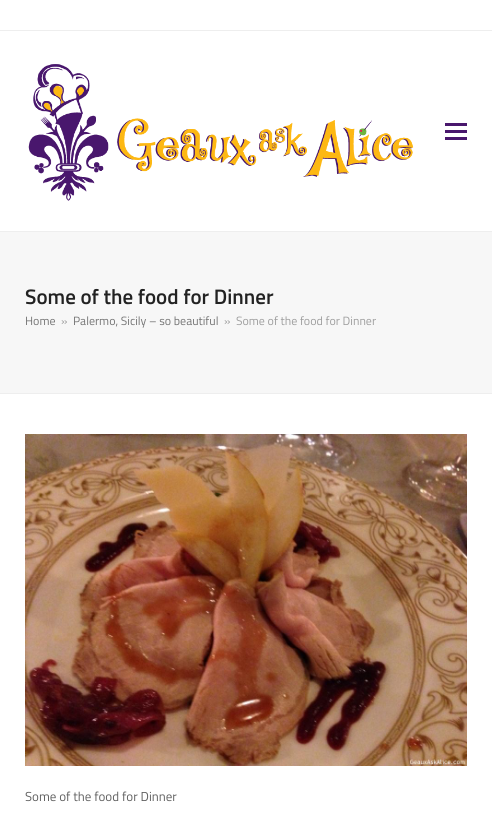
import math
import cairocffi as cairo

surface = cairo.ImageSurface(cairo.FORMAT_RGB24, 492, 818)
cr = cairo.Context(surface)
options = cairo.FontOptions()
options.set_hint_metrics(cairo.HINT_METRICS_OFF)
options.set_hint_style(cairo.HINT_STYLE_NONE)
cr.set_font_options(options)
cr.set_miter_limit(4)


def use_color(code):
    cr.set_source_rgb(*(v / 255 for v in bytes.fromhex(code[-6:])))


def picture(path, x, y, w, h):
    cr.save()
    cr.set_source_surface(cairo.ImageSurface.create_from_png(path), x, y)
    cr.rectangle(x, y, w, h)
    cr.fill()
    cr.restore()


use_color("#ffffff")
cr.paint()
use_color("#eeeeee")
cr.rectangle(0, 30, 492, 1)
cr.fill()
picture("img1.png", 28, 64, 386, 137)
use_color("#49176d")
cr.rectangle(445, 130, 22, 3)
cr.fill()
cr.rectangle(445, 123, 22, 3)
cr.fill()
cr.rectangle(445, 137, 22, 3)
cr.fill()
use_color("#f7f7f7")
cr.rectangle(0, 232, 492, 161)
cr.fill()
use_color("#eeeeee")
cr.rectangle(0, 231, 492, 1)
cr.fill()
cr.rectangle(0, 393, 492, 1)
cr.fill()
cr.select_font_face("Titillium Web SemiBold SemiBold")
cr.set_font_size(21)
use_color("#222222")
cr.move_to(25, 304)
cr.show_text("Some of the food for Dinner")
cr.select_font_face("Titillium Web")
cr.set_font_size(12)
use_color("#757575")
cr.move_to(25, 325)
cr.show_text("Home")
use_color("#9e9e9e")
cr.move_to(61, 325)
cr.show_text("»")
use_color("#757575")
cr.move_to(73, 325)
cr.show_text("Palermo, Sicily – so beautiful")
use_color("#9e9e9e")
cr.move_to(224, 325)
cr.show_text("»")
cr.move_to(236, 325)
cr.show_text("Some of the food for Dinner")
picture("img2.png", 25, 434, 442, 332)
cr.set_font_size(13)
use_color("#616161")
cr.move_to(25, 801)
cr.show_text("Some of the food for Dinner")
surface.write_to_png("result.png")
